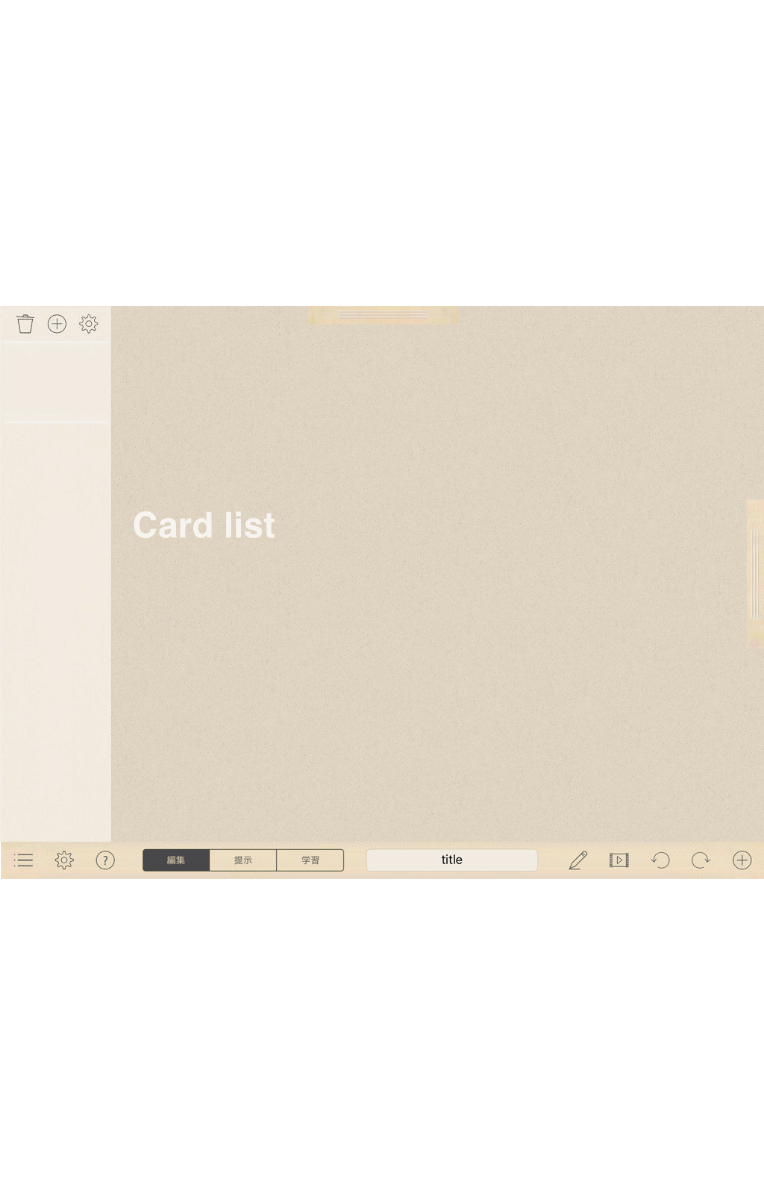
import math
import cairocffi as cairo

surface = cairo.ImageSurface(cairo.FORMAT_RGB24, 764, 1184)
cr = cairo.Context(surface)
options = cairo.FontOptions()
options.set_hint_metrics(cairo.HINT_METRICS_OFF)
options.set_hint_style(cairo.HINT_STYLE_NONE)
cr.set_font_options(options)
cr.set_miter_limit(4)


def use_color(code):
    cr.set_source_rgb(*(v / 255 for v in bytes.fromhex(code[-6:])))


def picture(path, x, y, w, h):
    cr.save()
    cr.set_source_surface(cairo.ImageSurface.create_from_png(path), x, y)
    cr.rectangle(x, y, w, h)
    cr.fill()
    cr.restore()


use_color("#ffffff")
cr.paint()
picture("img1.png", 0, 306, 764, 573)
surface.write_to_png("result.png")
